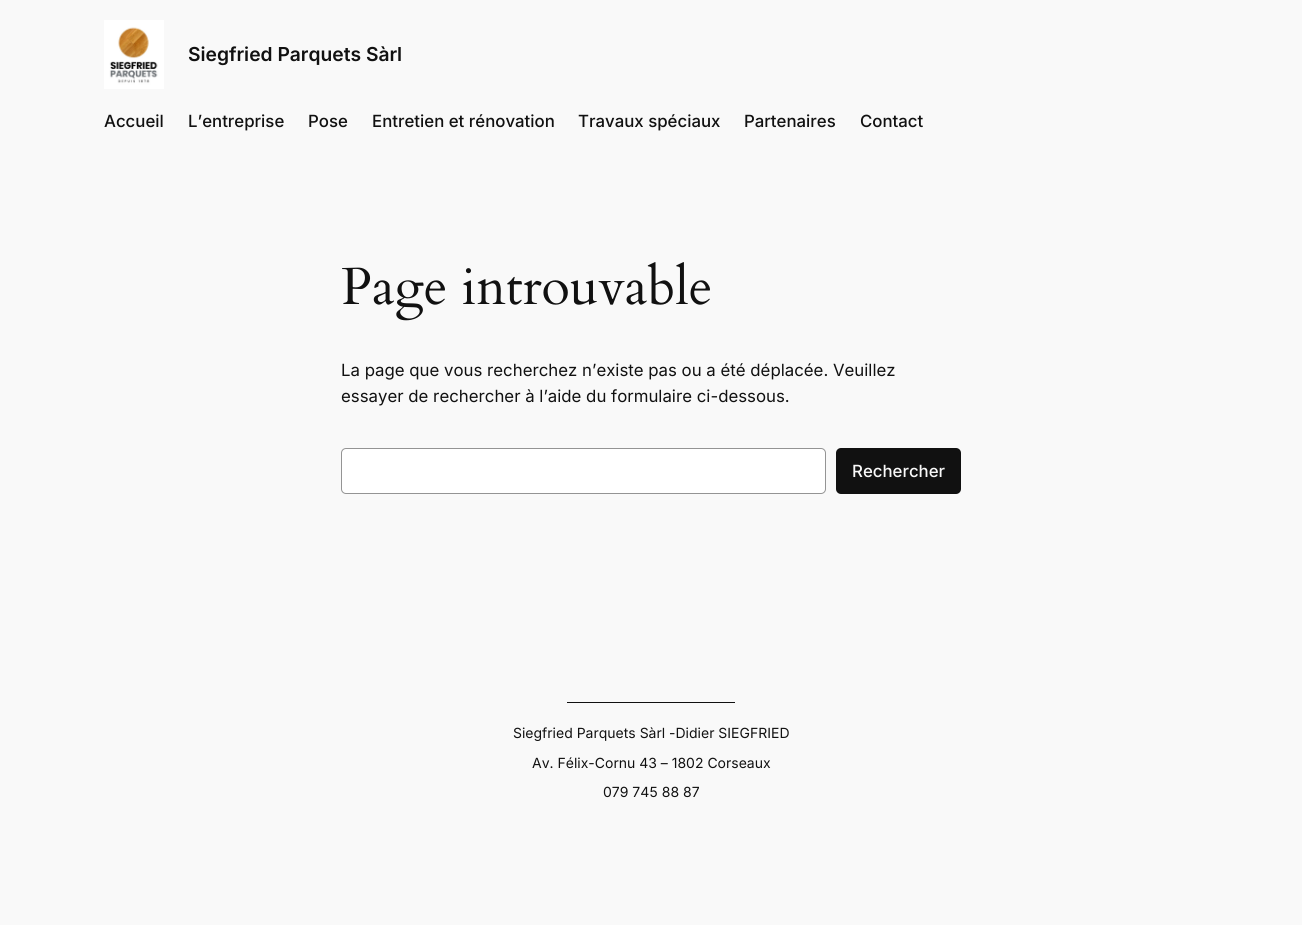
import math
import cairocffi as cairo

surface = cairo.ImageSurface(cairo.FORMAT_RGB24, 1302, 925)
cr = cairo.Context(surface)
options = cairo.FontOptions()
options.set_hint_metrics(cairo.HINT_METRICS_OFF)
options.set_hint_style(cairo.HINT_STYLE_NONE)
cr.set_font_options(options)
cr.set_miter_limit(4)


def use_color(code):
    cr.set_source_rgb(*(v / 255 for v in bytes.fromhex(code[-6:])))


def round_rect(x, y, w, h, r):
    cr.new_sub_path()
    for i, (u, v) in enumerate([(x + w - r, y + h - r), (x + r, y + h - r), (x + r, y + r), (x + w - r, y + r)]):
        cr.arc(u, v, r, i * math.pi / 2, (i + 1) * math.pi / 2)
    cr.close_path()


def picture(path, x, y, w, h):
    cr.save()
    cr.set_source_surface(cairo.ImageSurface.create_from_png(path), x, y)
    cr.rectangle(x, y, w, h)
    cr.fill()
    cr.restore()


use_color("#f9f9f9")
cr.paint()
picture("img1.png", 104, 20, 60, 69)
cr.select_font_face("Inter SemiBold")
cr.set_font_size(19.25)
use_color("#111111")
cr.move_to(188, 61)
cr.show_text("Siegfried Parquets Sàrl")
cr.select_font_face("Inter Medium")
cr.set_font_size(16.8)
cr.move_to(104, 127)
cr.show_text("Accueil")
cr.move_to(188, 127)
cr.show_text("L’entreprise")
cr.move_to(308, 127)
cr.show_text("Pose")
cr.move_to(372, 127)
cr.show_text("Entretien et rénovation")
cr.move_to(578, 127)
cr.show_text("Travaux spéciaux")
cr.move_to(744, 127)
cr.show_text("Partenaires")
cr.move_to(860, 127)
cr.show_text("Contact")
cr.select_font_face("Cardo")
cr.set_font_size(52.25)
cr.move_to(341, 304)
cr.show_text("Page introuvable")
cr.select_font_face("Inter")
cr.set_font_size(16.8)
cr.move_to(341, 376)
cr.show_text("La page que vous recherchez n’existe pas ou a été déplacée. Veuillez")
cr.move_to(341, 402)
cr.show_text("essayer de rechercher à l’aide du formulaire ci-dessous.")
use_color("#ffffff")
round_rect(341.5, 448.5, 484, 45, 4.5)
cr.fill_preserve()
use_color("#949494")
cr.set_line_width(1)
cr.stroke()
use_color("#111111")
round_rect(836, 448, 125, 46, 5)
cr.fill()
cr.select_font_face("Inter Medium")
use_color("#f9f9f9")
cr.move_to(852, 477)
cr.show_text("Rechercher")
use_color("#111111")
cr.rectangle(567, 702, 168, 1)
cr.fill()
cr.select_font_face("Inter")
cr.set_font_size(14)
cr.move_to(513, 738)
cr.show_text("Siegfried Parquets Sàrl -Didier SIEGFRIED")
cr.move_to(532, 768)
cr.show_text("Av. Félix-Cornu 43 – 1802 Corseaux")
cr.move_to(603, 797)
cr.show_text("079 745 88 87")
surface.write_to_png("result.png")
